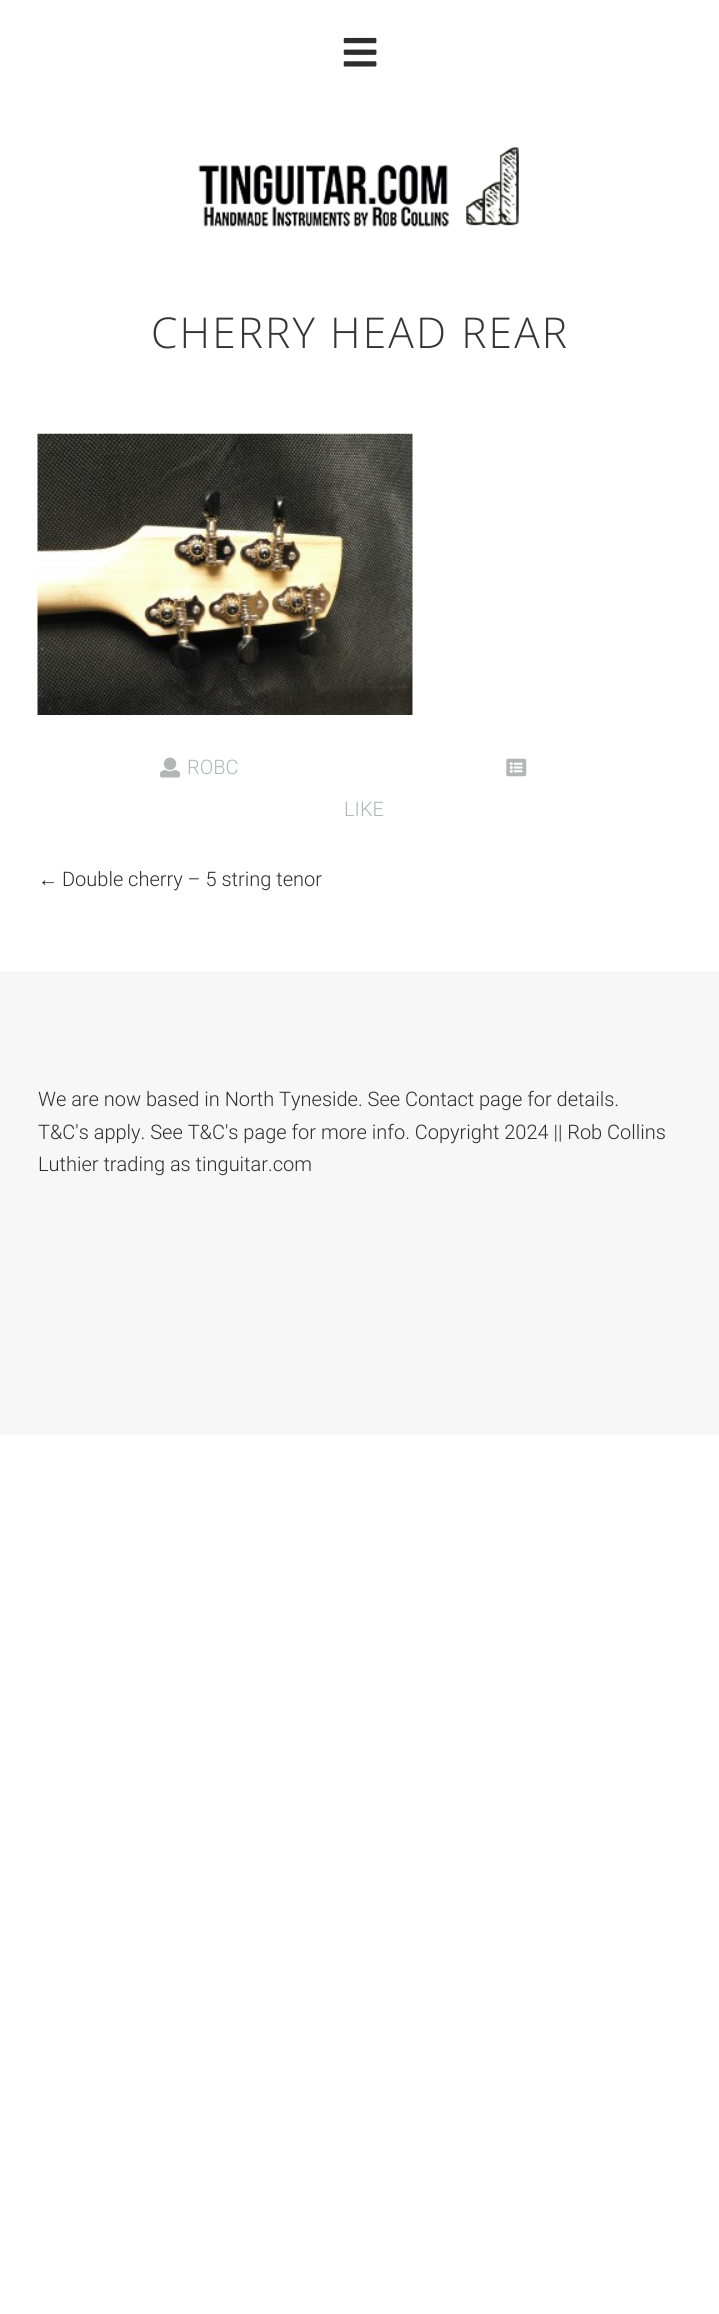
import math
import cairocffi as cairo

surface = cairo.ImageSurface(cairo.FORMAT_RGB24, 719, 2314)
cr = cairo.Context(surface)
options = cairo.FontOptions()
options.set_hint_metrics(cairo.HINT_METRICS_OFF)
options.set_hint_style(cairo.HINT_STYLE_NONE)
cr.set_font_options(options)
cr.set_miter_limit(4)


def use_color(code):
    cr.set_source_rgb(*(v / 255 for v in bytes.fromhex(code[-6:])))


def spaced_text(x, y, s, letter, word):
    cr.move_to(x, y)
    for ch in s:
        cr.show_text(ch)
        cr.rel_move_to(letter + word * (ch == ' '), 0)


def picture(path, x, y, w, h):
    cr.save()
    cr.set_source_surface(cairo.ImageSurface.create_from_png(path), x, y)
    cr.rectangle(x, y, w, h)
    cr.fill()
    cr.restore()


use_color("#ffffff")
cr.paint()
picture("img1.png", 343, 37, 34, 30)
picture("img2.png", 198, 147, 321, 80)
cr.select_font_face("Open Sans Light")
cr.set_font_size(42.5)
use_color("#353535")
spaced_text(151, 348, "CHERRY HEAD REAR", 2.1, 0)
picture("img3.png", 37, 433, 376, 282)
picture("img4.png", 160, 757, 20, 21)
cr.select_font_face("Roboto Light")
cr.set_font_size(20)
use_color("#b0b7b5")
cr.move_to(187, 774)
cr.show_text("ROBC")
picture("img5.png", 506, 758, 21, 19)
cr.move_to(344, 816)
cr.show_text("LIKE")
cr.select_font_face("Liberation Serif")
use_color("#2d2d2d")
cr.move_to(38, 886)
cr.show_text("←")
cr.select_font_face("Roboto Light")
cr.move_to(62, 886)
cr.show_text("Double cherry – 5 string tenor")
use_color("#f7f7f7")
cr.rectangle(0, 971, 719, 464)
cr.fill()
use_color("#2d2d2d")
cr.move_to(38, 1106)
cr.show_text("We are now based in North Tyneside. See Contact page for details.")
cr.move_to(38, 1139)
cr.show_text("T&C's apply. See T&C's page for more info. Copyright 2024 || Rob Collins")
cr.move_to(38, 1171)
cr.show_text("Luthier trading as tinguitar.com")
surface.write_to_png("result.png")
